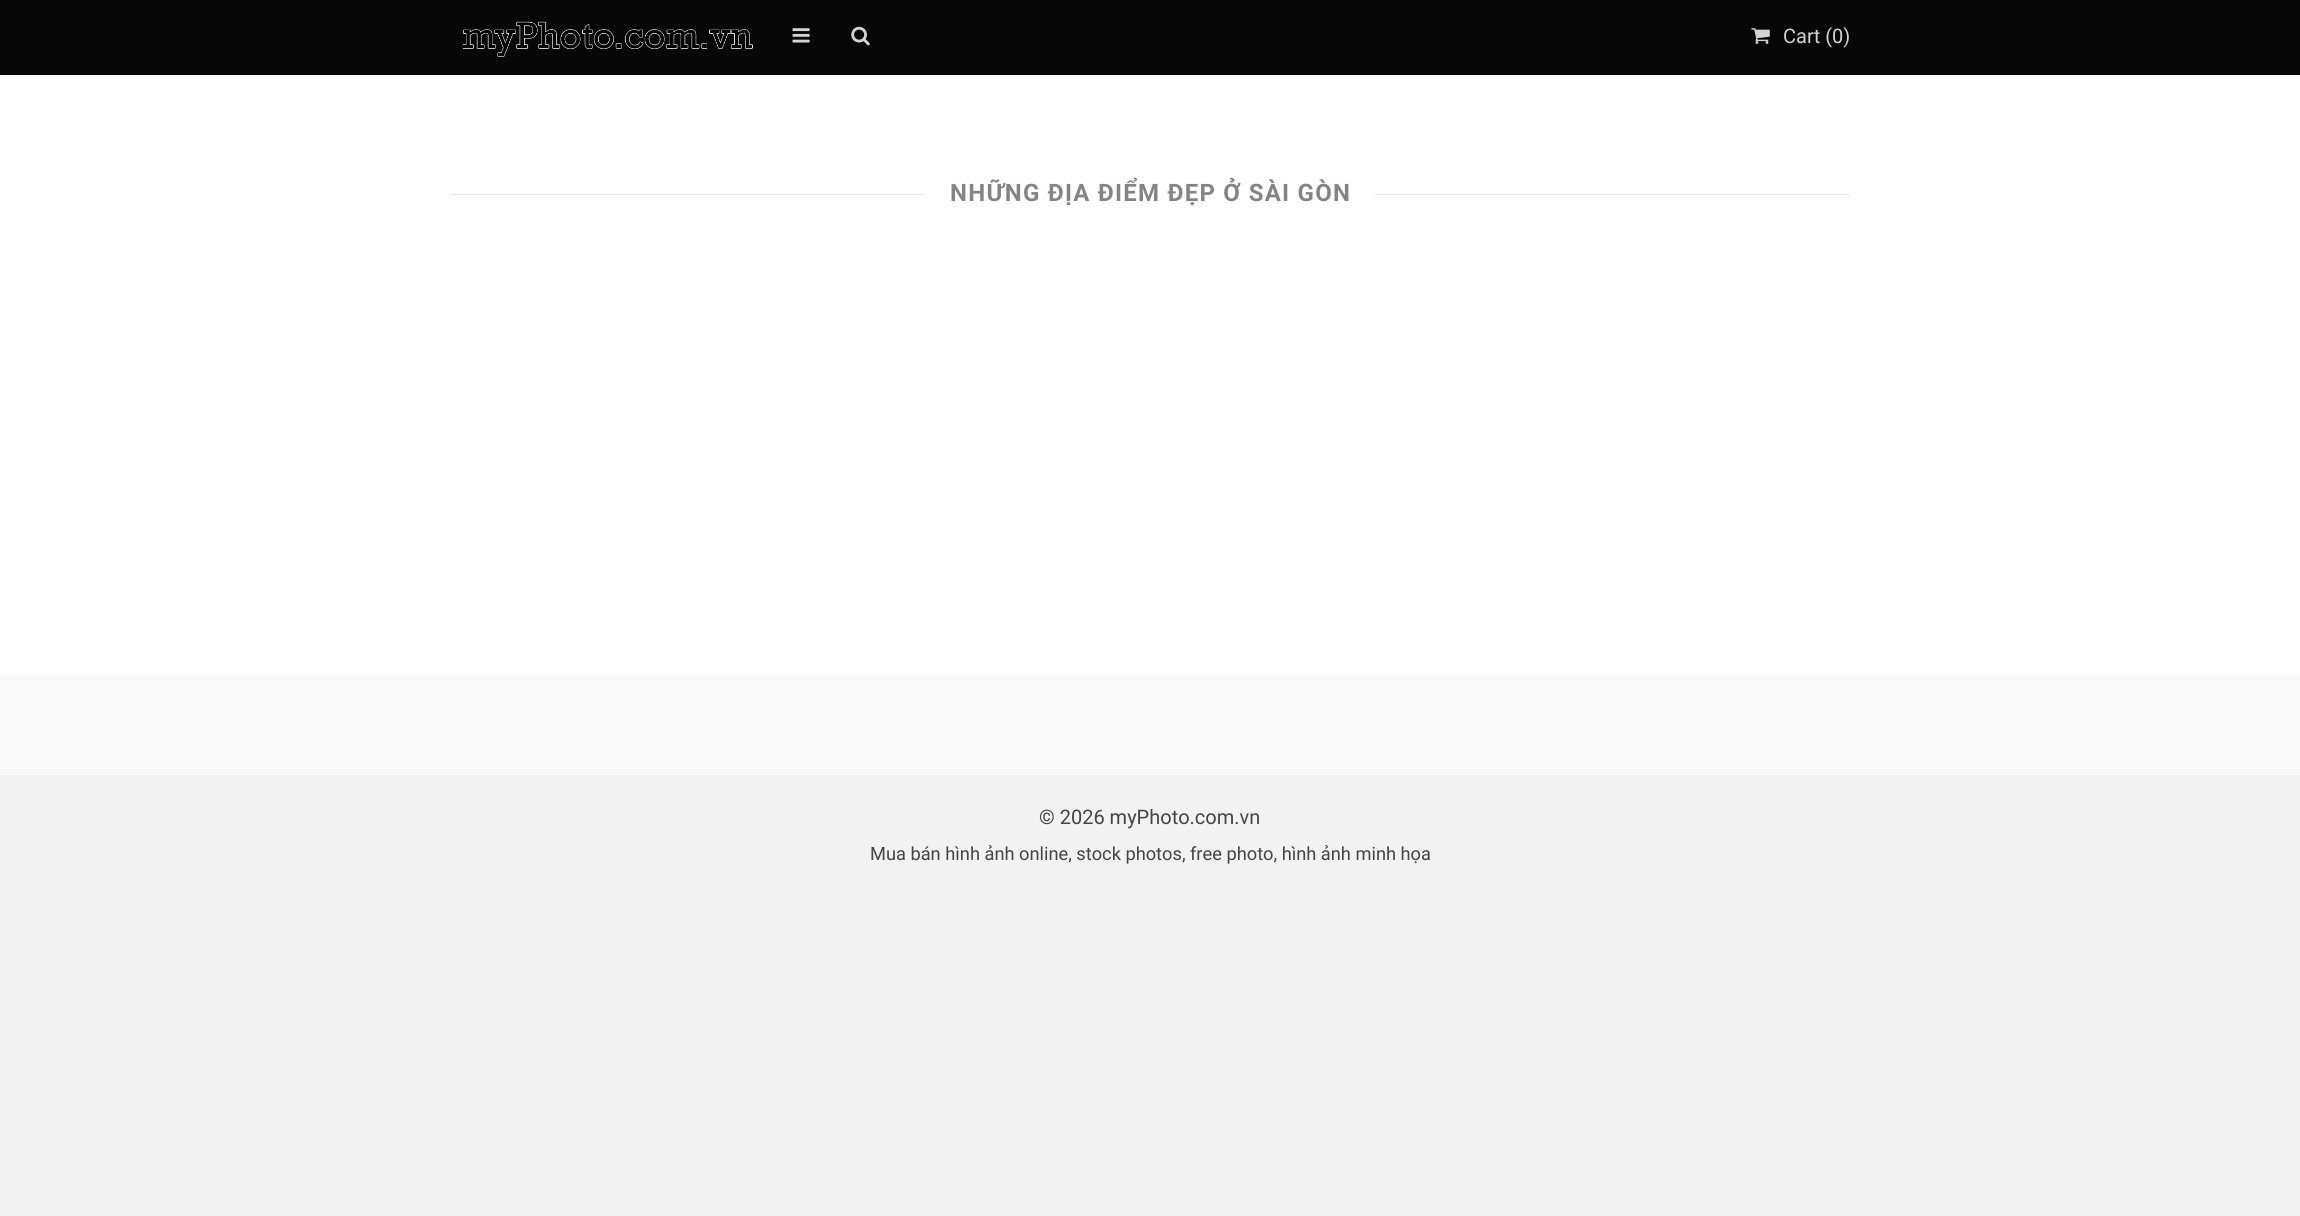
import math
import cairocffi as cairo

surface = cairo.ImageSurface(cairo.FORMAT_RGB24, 2300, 1216)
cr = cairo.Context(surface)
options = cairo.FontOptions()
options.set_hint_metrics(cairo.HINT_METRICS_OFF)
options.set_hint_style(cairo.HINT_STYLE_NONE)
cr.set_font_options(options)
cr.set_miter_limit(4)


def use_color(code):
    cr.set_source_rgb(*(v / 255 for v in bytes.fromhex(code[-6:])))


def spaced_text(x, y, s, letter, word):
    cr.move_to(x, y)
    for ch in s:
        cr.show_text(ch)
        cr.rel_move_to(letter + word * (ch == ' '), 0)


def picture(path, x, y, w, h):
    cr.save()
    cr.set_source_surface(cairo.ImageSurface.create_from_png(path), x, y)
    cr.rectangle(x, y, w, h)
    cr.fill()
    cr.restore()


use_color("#f2f2f2")
cr.paint()
use_color("#070708")
cr.rectangle(0, 0, 2300, 75)
cr.fill()
picture("img1.png", 462, 21, 291, 36)
picture("img2.png", 792, 28, 18, 15)
picture("img3.png", 851, 26, 19, 20)
picture("img4.png", 1751, 28, 19, 16)
cr.select_font_face("Roboto")
cr.set_font_size(20)
use_color("#d3d3d3")
cr.move_to(1783, 43)
cr.show_text("Cart (0)")
use_color("#ffffff")
cr.rectangle(0, 75, 2300, 600)
cr.fill()
use_color("#e5e5e5")
cr.rectangle(450, 194, 1400, 1)
cr.fill()
use_color("#ffffff")
cr.rectangle(925, 194, 450, 1)
cr.fill()
cr.select_font_face("Roboto", cairo.FONT_SLANT_NORMAL, cairo.FONT_WEIGHT_BOLD)
cr.set_font_size(24)
use_color("#848484")
spaced_text(950, 201, "NHỮNG ĐỊA ĐIỂM ĐẸP Ở SÀI GÒN", 1.25, 0)
use_color("#f9f9f9")
cr.rectangle(0, 675, 2300, 100)
cr.fill()
cr.select_font_face("Roboto")
cr.set_font_size(20)
use_color("#454545")
cr.move_to(1039, 824)
cr.show_text("© 2026 myPhoto.com.vn")
cr.set_font_size(18.25)
cr.move_to(870, 860)
cr.show_text("Mua bán hình ảnh online, stock photos, free photo, hình ảnh minh họa")
surface.write_to_png("result.png")
